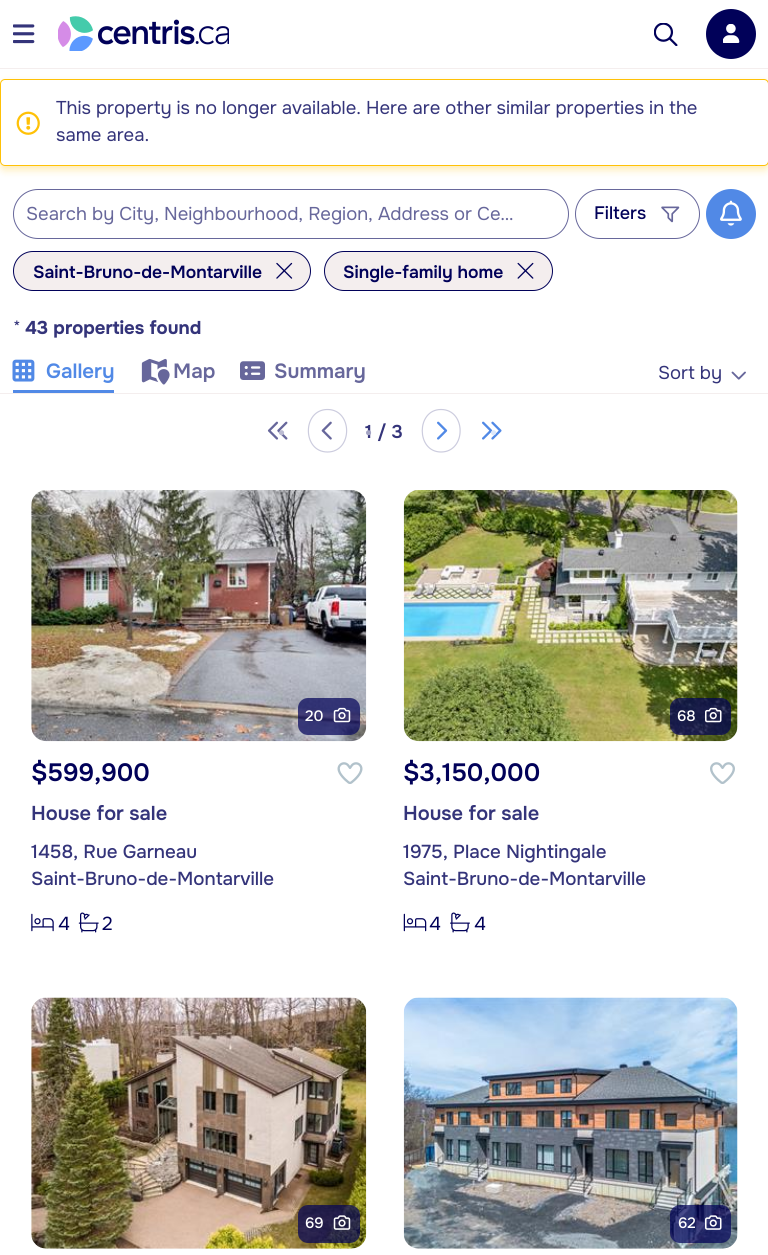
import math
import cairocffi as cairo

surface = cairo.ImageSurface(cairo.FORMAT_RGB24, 768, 1255)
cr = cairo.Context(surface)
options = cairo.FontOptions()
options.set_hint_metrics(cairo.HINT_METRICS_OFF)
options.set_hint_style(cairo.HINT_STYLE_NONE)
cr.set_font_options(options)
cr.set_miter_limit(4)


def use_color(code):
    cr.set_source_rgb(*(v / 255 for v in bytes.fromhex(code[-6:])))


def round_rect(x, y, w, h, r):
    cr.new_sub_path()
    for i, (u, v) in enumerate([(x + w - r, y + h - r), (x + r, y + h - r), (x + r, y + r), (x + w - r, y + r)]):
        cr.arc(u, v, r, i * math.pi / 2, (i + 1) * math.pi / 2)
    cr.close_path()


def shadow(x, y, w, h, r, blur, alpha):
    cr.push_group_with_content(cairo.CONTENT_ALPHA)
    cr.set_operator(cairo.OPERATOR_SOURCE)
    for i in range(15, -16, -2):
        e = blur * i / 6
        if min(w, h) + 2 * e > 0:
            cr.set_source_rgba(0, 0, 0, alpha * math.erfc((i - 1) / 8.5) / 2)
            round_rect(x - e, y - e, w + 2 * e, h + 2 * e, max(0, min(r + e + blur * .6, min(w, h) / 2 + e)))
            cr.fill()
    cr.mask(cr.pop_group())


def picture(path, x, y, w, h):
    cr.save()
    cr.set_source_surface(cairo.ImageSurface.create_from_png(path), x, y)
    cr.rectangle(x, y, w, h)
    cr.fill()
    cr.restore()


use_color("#ffffff")
cr.paint()
use_color("#f4eeee")
cr.rectangle(0, 68, 768, 1)
cr.fill()
picture("img1.png", 13, 24, 22, 20)
picture("img2.png", 58, 16, 171, 35)
picture("img3.png", 654, 23, 24, 23)
use_color("#010159")
cr.arc(731, 34, 25, 0, 2 * math.pi)
cr.fill()
picture("img4.png", 723, 24, 17, 19)
use_color("#ffc107")
shadow(0, 83, 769, 87, 5, 4, 0.3)
use_color("#ffffff")
round_rect(0, 79, 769, 87, 5)
cr.fill()
picture("img5.png", 16, 111, 24, 24)
round_rect(0.5, 79.5, 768, 86, 4.5)
use_color("#ffc107")
cr.set_line_width(1)
cr.stroke()
cr.select_font_face("Onest")
cr.set_font_size(18.5)
use_color("#34347a")
cr.move_to(56, 114)
cr.show_text("This property is no longer available. Here are other similar properties in the")
cr.move_to(56, 141)
cr.show_text("same area.")
round_rect(13.5, 189.5, 555, 49, 24.5)
use_color("#67679b")
cr.stroke()
cr.move_to(26, 220)
cr.show_text("Search by City, Neighbourhood, Region, Address or Ce…")
round_rect(575.5, 189.5, 124, 49, 24.5)
cr.stroke()
cr.select_font_face("Onest Medium")
cr.set_font_size(18)
use_color("#010159")
cr.move_to(594, 219)
cr.show_text("Filters")
picture("img6.png", 661, 206, 19, 17)
use_color("#5189e6")
cr.arc(731, 214, 25, 0, 2 * math.pi)
cr.fill()
picture("img7.png", 720, 200, 22, 26)
use_color("#f4eeee")
round_rect(13.5, 251.5, 297, 39, 19.5)
cr.fill_preserve()
use_color("#010159")
cr.stroke()
cr.select_font_face("Onest SemiBold")
cr.set_font_size(17.5)
cr.move_to(33, 278)
cr.show_text("Saint-Bruno-de-Montarville")
picture("img8.png", 276, 262, 17, 17)
use_color("#f4eeee")
round_rect(324.5, 251.5, 228, 39, 19.5)
cr.fill_preserve()
use_color("#010159")
cr.stroke()
cr.move_to(343, 278)
cr.show_text("Single-family home")
picture("img9.png", 517, 262, 17, 17)
use_color("#f4eeee")
cr.rectangle(0, 393, 768, 1)
cr.fill()
cr.select_font_face("Onest")
cr.set_font_size(18.5)
use_color("#34347a")
cr.move_to(13, 334)
cr.show_text("*")
cr.select_font_face("Onest", cairo.FONT_SLANT_NORMAL, cairo.FONT_WEIGHT_BOLD)
cr.move_to(25, 334)
cr.show_text("43 properties found")
use_color("#5189e6")
cr.rectangle(13, 390, 101, 3)
cr.fill()
picture("img10.png", 12, 359, 23, 23)
cr.select_font_face("Onest SemiBold")
cr.set_font_size(20.5)
cr.move_to(46, 378)
cr.show_text("Gallery")
picture("img11.png", 141, 358, 29, 27)
use_color("#67679b")
cr.move_to(173, 378)
cr.show_text("Map")
picture("img12.png", 240, 361, 25, 19)
cr.move_to(274, 378)
cr.show_text("Summary")
cr.select_font_face("Onest")
cr.set_font_size(18.5)
use_color("#34347a")
cr.move_to(658, 379)
cr.show_text("Sort by")
picture("img13.png", 731, 371, 15, 9)
picture("img14.png", 267, 421, 21, 19)
cr.select_font_face("Onest SemiBold")
cr.set_font_size(20)
use_color("#bbbbd2")
cr.move_to(278, 440)
cr.show_text("•")
cr.new_path()
cr.move_to(327.5, 409.5)
cr.curve_to(353, 409.5, 353, 452, 327.5, 452)
cr.curve_to(302, 452, 302, 409.5, 327.5, 409.5)
cr.close_path()
use_color("#ccccde")
cr.set_line_width(1.2)
cr.stroke()
picture("img15.png", 321, 421, 11, 19)
cr.set_font_size(18.5)
use_color("#34347a")
cr.move_to(365, 438)
cr.show_text("1 / 3")
cr.set_font_size(20)
use_color("#a3a3c3")
cr.move_to(365, 440)
cr.show_text("•")
cr.new_path()
cr.move_to(441, 409.5)
cr.curve_to(466.5, 409.5, 466.5, 452, 441, 452)
cr.curve_to(416, 452, 416, 409.5, 441, 409.5)
cr.close_path()
use_color("#ccccde")
cr.stroke()
picture("img16.png", 437, 421, 11, 19)
picture("img17.png", 482, 421, 20, 19)
use_color("#dde8fa")
cr.move_to(490, 440)
cr.show_text("•")
picture("img18.png", 31, 490, 336, 252)
cr.set_source_rgba(0.004, 0.004, 0.349, 0.7)
round_rect(298, 698, 62, 37, 10)
cr.fill()
cr.select_font_face("Onest Medium")
cr.set_font_size(15)
use_color("#ffffff")
cr.move_to(305, 721)
cr.show_text("20")
picture("img19.png", 333, 707, 18, 16)
cr.select_font_face("Onest SemiBold")
cr.set_font_size(25)
use_color("#010159")
cr.move_to(31, 781)
cr.show_text("$599,900")
picture("img20.png", 337, 762, 26, 22)
cr.set_font_size(20)
use_color("#34347a")
cr.move_to(31, 820)
cr.show_text("House for sale")
cr.select_font_face("Onest Medium")
cr.set_font_size(18.75)
cr.move_to(31, 858)
cr.show_text("1458, Rue Garneau")
cr.move_to(31, 885)
cr.show_text("Saint-Bruno-de-Montarville")
picture("img21.png", 31, 913, 23, 19)
cr.select_font_face("Onest")
use_color("#010159")
cr.move_to(58, 930)
cr.show_text("4")
picture("img22.png", 78, 912, 21, 21)
cr.move_to(102, 930)
cr.show_text("2")
picture("img23.png", 403, 490, 335, 252)
cr.set_source_rgba(0.004, 0.004, 0.349, 0.7)
round_rect(670, 698, 61, 37, 10)
cr.fill()
cr.select_font_face("Onest Medium")
cr.set_font_size(15)
use_color("#ffffff")
cr.move_to(677, 721)
cr.show_text("68")
picture("img24.png", 705, 707, 17, 16)
cr.select_font_face("Onest SemiBold")
cr.set_font_size(25)
use_color("#010159")
cr.move_to(403, 781)
cr.show_text("$3,150,000")
picture("img25.png", 710, 762, 25, 22)
cr.set_font_size(20)
use_color("#34347a")
cr.move_to(403, 820)
cr.show_text("House for sale")
cr.select_font_face("Onest Medium")
cr.set_font_size(18.75)
cr.move_to(403, 858)
cr.show_text("1975, Place Nightingale")
cr.move_to(403, 885)
cr.show_text("Saint-Bruno-de-Montarville")
picture("img26.png", 403, 913, 24, 19)
cr.select_font_face("Onest")
use_color("#010159")
cr.move_to(429, 930)
cr.show_text("4")
picture("img27.png", 450, 912, 20, 21)
cr.move_to(474, 930)
cr.show_text("4")
picture("img28.png", 31, 997, 336, 252)
cr.set_source_rgba(0.004, 0.004, 0.349, 0.7)
round_rect(298, 1205, 62, 38, 10)
cr.fill()
cr.select_font_face("Onest Medium")
cr.set_font_size(15)
use_color("#ffffff")
cr.move_to(305, 1228)
cr.show_text("69")
picture("img29.png", 333, 1215, 18, 15)
picture("img30.png", 403, 997, 335, 252)
cr.set_source_rgba(0.004, 0.004, 0.349, 0.7)
round_rect(670, 1205, 61, 38, 10)
cr.fill()
use_color("#ffffff")
cr.move_to(678, 1228)
cr.show_text("62")
picture("img31.png", 705, 1215, 17, 15)
surface.write_to_png("result.png")
